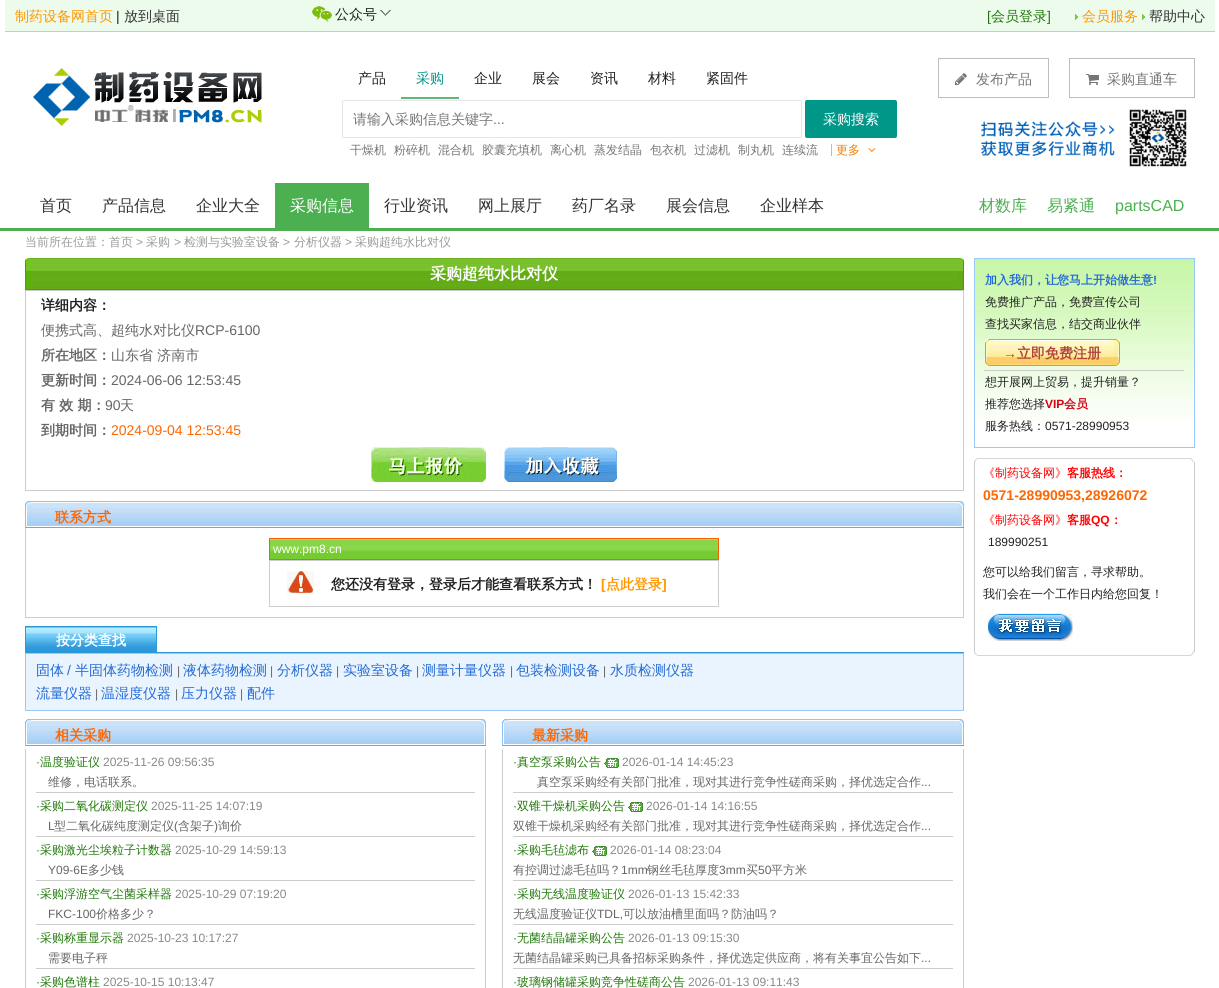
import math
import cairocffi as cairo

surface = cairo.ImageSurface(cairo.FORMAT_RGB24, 1219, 988)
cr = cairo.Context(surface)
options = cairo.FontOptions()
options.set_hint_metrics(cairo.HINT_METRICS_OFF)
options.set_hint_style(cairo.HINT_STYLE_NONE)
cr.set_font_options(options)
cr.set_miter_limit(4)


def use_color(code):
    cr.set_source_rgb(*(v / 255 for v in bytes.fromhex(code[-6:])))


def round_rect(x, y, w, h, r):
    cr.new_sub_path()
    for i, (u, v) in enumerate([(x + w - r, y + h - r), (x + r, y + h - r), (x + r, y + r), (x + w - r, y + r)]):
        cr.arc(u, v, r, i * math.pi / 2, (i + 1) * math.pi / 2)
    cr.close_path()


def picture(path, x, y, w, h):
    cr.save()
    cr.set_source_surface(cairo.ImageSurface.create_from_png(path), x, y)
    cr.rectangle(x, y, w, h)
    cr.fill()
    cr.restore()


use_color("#ffffff")
cr.paint()
use_color("#edfbec")
cr.rectangle(5, 0, 1210, 31)
cr.fill()
use_color("#b7df87")
cr.rectangle(5, 31, 1210, 1)
cr.fill()
cr.select_font_face("WenQuanYi Zen Hei Medium")
cr.set_font_size(14)
use_color("#ff9800")
cr.move_to(15, 21)
cr.show_text("制药设备网首页")
cr.select_font_face("Liberation Sans")
use_color("#212121")
cr.move_to(116, 21)
cr.show_text("|")
cr.select_font_face("WenQuanYi Zen Hei Medium")
use_color("#333333")
cr.move_to(124, 21)
cr.show_text("放到桌面")
picture("img1.png", 312, 6, 20, 16)
use_color("#212121")
cr.move_to(335, 19)
cr.show_text("公众号")
picture("img2.png", 380, 10, 11, 6)
cr.select_font_face("Liberation Sans")
use_color("#20780a")
cr.move_to(987, 21)
cr.show_text("[")
cr.select_font_face("WenQuanYi Zen Hei Medium")
cr.move_to(991, 21)
cr.show_text("会员登录")
cr.select_font_face("Liberation Sans")
cr.move_to(1047, 21)
cr.show_text("]")
picture("img3.png", 1075, 14, 3, 6)
cr.select_font_face("WenQuanYi Zen Hei Medium")
use_color("#ff9800")
cr.move_to(1082, 21)
cr.show_text("会员服务")
picture("img3.png", 1142, 14, 3, 6)
use_color("#333333")
cr.move_to(1149, 21)
cr.show_text("帮助中心")
picture("img4.png", 33, 68, 229, 58)
use_color("#212121")
cr.move_to(358, 83)
cr.show_text("产品")
use_color("#009688")
cr.move_to(416, 83)
cr.show_text("采购")
use_color("#5fb878")
cr.rectangle(401, 97, 58, 2)
cr.fill()
use_color("#212121")
cr.move_to(474, 83)
cr.show_text("企业")
cr.move_to(532, 83)
cr.show_text("展会")
cr.move_to(590, 83)
cr.show_text("资讯")
cr.move_to(648, 83)
cr.show_text("材料")
cr.move_to(706, 83)
cr.show_text("紧固件")
round_rect(342.5, 100.5, 459, 37, 1.5)
use_color("#e6e6e6")
cr.set_line_width(1)
cr.stroke()
use_color("#757575")
cr.move_to(353, 124)
cr.show_text("请输入采购信息关键字")
cr.select_font_face("Liberation Sans")
cr.move_to(493, 124)
cr.show_text("...")
use_color("#009688")
round_rect(805, 100, 92, 38, 2)
cr.fill()
cr.select_font_face("WenQuanYi Zen Hei Medium")
use_color("#ffffff")
cr.move_to(823, 124)
cr.show_text("采购搜索")
cr.rectangle(938.5, 58.5, 110, 39)
use_color("#bdbdbd")
cr.stroke()
picture("img5.png", 955, 73, 12, 12)
use_color("#757575")
cr.move_to(976, 84)
cr.show_text("发布产品")
cr.rectangle(1069.5, 58.5, 125, 39)
use_color("#bdbdbd")
cr.stroke()
picture("img6.png", 1086, 74, 13, 11)
use_color("#757575")
cr.move_to(1107, 84)
cr.show_text("采购直通车")
cr.set_font_size(12)
cr.move_to(350, 154)
cr.show_text("干燥机")
cr.move_to(394, 154)
cr.show_text("粉碎机")
cr.move_to(438, 154)
cr.show_text("混合机")
cr.move_to(482, 154)
cr.show_text("胶囊充填机")
cr.move_to(550, 154)
cr.show_text("离心机")
cr.move_to(594, 154)
cr.show_text("蒸发结晶")
cr.move_to(650, 154)
cr.show_text("包衣机")
cr.move_to(694, 154)
cr.show_text("过滤机")
cr.move_to(738, 154)
cr.show_text("制丸机")
cr.move_to(782, 154)
cr.show_text("连续流")
use_color("#bdbdbd")
cr.rectangle(831, 144, 1, 12)
cr.fill()
use_color("#f57c00")
cr.move_to(836, 154)
cr.show_text("更多")
picture("img7.png", 868, 148, 8, 4)
picture("img8.png", 981, 109, 206, 58)
use_color("#4caf50")
cr.rectangle(0, 228, 1219, 3)
cr.fill()
cr.set_font_size(16)
use_color("#333333")
cr.move_to(40, 211)
cr.show_text("首页")
cr.move_to(102, 211)
cr.show_text("产品信息")
cr.move_to(196, 211)
cr.show_text("企业大全")
use_color("#4caf50")
cr.rectangle(275, 183, 94, 45)
cr.fill()
use_color("#ffffff")
cr.move_to(290, 211)
cr.show_text("采购信息")
use_color("#333333")
cr.move_to(384, 211)
cr.show_text("行业资讯")
cr.move_to(478, 211)
cr.show_text("网上展厅")
cr.move_to(572, 211)
cr.show_text("药厂名录")
cr.move_to(666, 211)
cr.show_text("展会信息")
cr.move_to(760, 211)
cr.show_text("企业样本")
use_color("#4caf50")
cr.move_to(979, 211)
cr.show_text("材数库")
cr.move_to(1047, 211)
cr.show_text("易紧通")
cr.select_font_face("Liberation Sans")
cr.move_to(1115, 211)
cr.show_text("partsCAD")
cr.select_font_face("WenQuanYi Zen Hei Medium")
cr.set_font_size(12)
use_color("#999999")
cr.move_to(25, 246)
cr.show_text("当前所在位置：首页")
cr.select_font_face("Liberation Sans")
cr.move_to(136, 246)
cr.show_text(">")
cr.select_font_face("WenQuanYi Zen Hei Medium")
cr.move_to(146, 246)
cr.show_text("采购")
cr.select_font_face("Liberation Sans")
cr.move_to(174, 246)
cr.show_text(">")
cr.select_font_face("WenQuanYi Zen Hei Medium")
cr.move_to(184, 246)
cr.show_text("检测与实验室设备")
cr.select_font_face("Liberation Sans")
cr.move_to(283, 246)
cr.show_text(">")
cr.select_font_face("WenQuanYi Zen Hei Medium")
cr.move_to(294, 246)
cr.show_text("分析仪器")
cr.select_font_face("Liberation Sans")
cr.move_to(345, 246)
cr.show_text(">")
cr.select_font_face("WenQuanYi Zen Hei Medium")
cr.move_to(355, 246)
cr.show_text("采购超纯水比对仪")
picture("img9.png", 31, 258, 933, 32)
picture("img10.png", 25, 258, 6, 32)
cr.select_font_face("WenQuanYi Zen Hei", cairo.FONT_SLANT_NORMAL, cairo.FONT_WEIGHT_BOLD)
cr.set_font_size(16)
use_color("#ffffff")
cr.move_to(430, 279)
cr.show_text("采购超纯水比对仪")
picture("img11.png", 958, 258, 6, 31)
use_color("#cccccc")
cr.rectangle(25, 290, 939, 1)
cr.fill()
cr.rectangle(963, 290, 1, 201)
cr.fill()
cr.rectangle(25, 490, 939, 1)
cr.fill()
cr.rectangle(25, 290, 1, 201)
cr.fill()
cr.set_font_size(14)
use_color("#212121")
cr.move_to(41, 310)
cr.show_text("详细内容：")
cr.select_font_face("WenQuanYi Zen Hei Medium")
use_color("#666666")
cr.move_to(41, 335)
cr.show_text("便携式高、超纯水对比仪")
cr.select_font_face("Liberation Sans")
cr.move_to(195, 335)
cr.show_text("RCP-6100")
cr.select_font_face("WenQuanYi Zen Hei", cairo.FONT_SLANT_NORMAL, cairo.FONT_WEIGHT_BOLD)
cr.move_to(41, 360)
cr.show_text("所在地区：")
cr.select_font_face("WenQuanYi Zen Hei Medium")
cr.move_to(111, 360)
cr.show_text("山东省 济南市")
cr.select_font_face("WenQuanYi Zen Hei", cairo.FONT_SLANT_NORMAL, cairo.FONT_WEIGHT_BOLD)
cr.move_to(41, 385)
cr.show_text("更新时间：")
cr.select_font_face("Liberation Sans")
cr.move_to(111, 385)
cr.show_text("2024-06-06 12:53:45")
cr.select_font_face("WenQuanYi Zen Hei", cairo.FONT_SLANT_NORMAL, cairo.FONT_WEIGHT_BOLD)
cr.move_to(41, 410)
cr.show_text("有 效 期：")
cr.select_font_face("Liberation Sans")
cr.move_to(105, 410)
cr.show_text("90")
cr.select_font_face("WenQuanYi Zen Hei Medium")
cr.move_to(120, 410)
cr.show_text("天")
cr.select_font_face("WenQuanYi Zen Hei", cairo.FONT_SLANT_NORMAL, cairo.FONT_WEIGHT_BOLD)
cr.move_to(41, 435)
cr.show_text("到期时间：")
cr.select_font_face("Liberation Sans")
use_color("#ff6600")
cr.move_to(111, 435)
cr.show_text("2024-09-04 12:53:45")
picture("img12.png", 371, 447, 115, 35)
picture("img13.png", 504, 447, 113, 35)
picture("img14.png", 31, 501, 927, 27)
picture("img15.png", 25, 501, 6, 27)
cr.select_font_face("WenQuanYi Zen Hei", cairo.FONT_SLANT_NORMAL, cairo.FONT_WEIGHT_BOLD)
cr.move_to(55, 522)
cr.show_text("联系方式")
picture("img16.png", 958, 501, 6, 27)
use_color("#cccccc")
cr.rectangle(963, 528, 1, 90)
cr.fill()
cr.rectangle(25, 617, 939, 1)
cr.fill()
cr.rectangle(25, 528, 1, 90)
cr.fill()
picture("img17.png", 270, 539, 448, 20)
use_color("#fa5f00")
cr.rectangle(269, 538, 450, 1)
cr.fill()
cr.rectangle(718, 538, 1, 22)
cr.fill()
cr.rectangle(269, 559, 450, 1)
cr.fill()
cr.rectangle(269, 538, 1, 22)
cr.fill()
cr.select_font_face("Liberation Sans")
cr.set_font_size(12)
use_color("#ffffff")
cr.move_to(273, 553)
cr.show_text("www.pm8.cn")
use_color("#cccccc")
cr.rectangle(269, 560, 450, 1)
cr.fill()
cr.rectangle(718, 560, 1, 47)
cr.fill()
cr.rectangle(269, 606, 450, 1)
cr.fill()
cr.rectangle(269, 560, 1, 47)
cr.fill()
picture("img18.png", 287, 571, 27, 23)
cr.select_font_face("WenQuanYi Zen Hei", cairo.FONT_SLANT_NORMAL, cairo.FONT_WEIGHT_BOLD)
cr.set_font_size(14)
use_color("#212121")
cr.move_to(331, 589)
cr.show_text("您还没有登录，登录后才能查看联系方式！")
cr.select_font_face("Liberation Sans", cairo.FONT_SLANT_NORMAL, cairo.FONT_WEIGHT_BOLD)
use_color("#ff9800")
cr.move_to(601, 589)
cr.show_text("[")
cr.select_font_face("WenQuanYi Zen Hei", cairo.FONT_SLANT_NORMAL, cairo.FONT_WEIGHT_BOLD)
cr.move_to(606, 589)
cr.show_text("点此登录")
cr.select_font_face("Liberation Sans", cairo.FONT_SLANT_NORMAL, cairo.FONT_WEIGHT_BOLD)
cr.move_to(662, 589)
cr.show_text("]")
picture("img19.png", 26, 627, 130, 25)
use_color("#2c9ad9")
cr.rectangle(25, 626, 132, 1)
cr.fill()
cr.rectangle(156, 652, 808, 1)
cr.fill()
cr.rectangle(156, 626, 1, 27)
cr.fill()
cr.rectangle(25, 652, 132, 1)
cr.fill()
cr.rectangle(25, 626, 1, 27)
cr.fill()
cr.select_font_face("WenQuanYi Zen Hei", cairo.FONT_SLANT_NORMAL, cairo.FONT_WEIGHT_BOLD)
use_color("#ffffff")
cr.move_to(56, 645)
cr.show_text("按分类查找")
use_color("#eaf4fe")
cr.rectangle(26, 654, 937, 56)
cr.fill()
use_color("#98c9f9")
cr.rectangle(25, 653, 939, 1)
cr.fill()
cr.rectangle(963, 653, 1, 58)
cr.fill()
cr.rectangle(25, 710, 939, 1)
cr.fill()
cr.rectangle(25, 653, 1, 58)
cr.fill()
cr.select_font_face("WenQuanYi Zen Hei Medium")
use_color("#236ad5")
cr.move_to(36, 675)
cr.show_text("固体")
cr.select_font_face("Liberation Sans")
cr.move_to(67, 675)
cr.show_text("/")
cr.select_font_face("WenQuanYi Zen Hei Medium")
cr.move_to(75, 675)
cr.show_text("半固体药物检测")
cr.select_font_face("Liberation Sans")
cr.set_font_size(12)
use_color("#666666")
cr.move_to(177, 675)
cr.show_text("|")
cr.select_font_face("WenQuanYi Zen Hei Medium")
cr.set_font_size(14)
use_color("#236ad5")
cr.move_to(183, 675)
cr.show_text("液体药物检测")
cr.select_font_face("Liberation Sans")
cr.set_font_size(12)
use_color("#666666")
cr.move_to(270, 675)
cr.show_text("|")
cr.select_font_face("WenQuanYi Zen Hei Medium")
cr.set_font_size(14)
use_color("#236ad5")
cr.move_to(277, 675)
cr.show_text("分析仪器")
cr.select_font_face("Liberation Sans")
cr.set_font_size(12)
use_color("#666666")
cr.move_to(336, 675)
cr.show_text("|")
cr.select_font_face("WenQuanYi Zen Hei Medium")
cr.set_font_size(14)
use_color("#236ad5")
cr.move_to(343, 675)
cr.show_text("实验室设备")
cr.select_font_face("Liberation Sans")
cr.set_font_size(12)
use_color("#666666")
cr.move_to(416, 675)
cr.show_text("|")
cr.select_font_face("WenQuanYi Zen Hei Medium")
cr.set_font_size(14)
use_color("#236ad5")
cr.move_to(422, 675)
cr.show_text("测量计量仪器")
cr.select_font_face("Liberation Sans")
cr.set_font_size(12)
use_color("#666666")
cr.move_to(510, 675)
cr.show_text("|")
cr.select_font_face("WenQuanYi Zen Hei Medium")
cr.set_font_size(14)
use_color("#236ad5")
cr.move_to(516, 675)
cr.show_text("包装检测设备")
cr.select_font_face("Liberation Sans")
cr.set_font_size(12)
use_color("#666666")
cr.move_to(603, 675)
cr.show_text("|")
cr.select_font_face("WenQuanYi Zen Hei Medium")
cr.set_font_size(14)
use_color("#236ad5")
cr.move_to(610, 675)
cr.show_text("水质检测仪器")
cr.move_to(36, 698)
cr.show_text("流量仪器")
cr.select_font_face("Liberation Sans")
cr.set_font_size(12)
use_color("#666666")
cr.move_to(95, 698)
cr.show_text("|")
cr.select_font_face("WenQuanYi Zen Hei Medium")
cr.set_font_size(14)
use_color("#236ad5")
cr.move_to(101, 698)
cr.show_text("温湿度仪器")
cr.select_font_face("Liberation Sans")
cr.set_font_size(12)
use_color("#666666")
cr.move_to(175, 698)
cr.show_text("|")
cr.select_font_face("WenQuanYi Zen Hei Medium")
cr.set_font_size(14)
use_color("#236ad5")
cr.move_to(181, 698)
cr.show_text("压力仪器")
cr.select_font_face("Liberation Sans")
cr.set_font_size(12)
use_color("#666666")
cr.move_to(240, 698)
cr.show_text("|")
cr.select_font_face("WenQuanYi Zen Hei Medium")
cr.set_font_size(14)
use_color("#236ad5")
cr.move_to(247, 698)
cr.show_text("配件")
picture("img20.png", 31, 719, 449, 27)
picture("img15.png", 25, 719, 6, 27)
cr.select_font_face("WenQuanYi Zen Hei", cairo.FONT_SLANT_NORMAL, cairo.FONT_WEIGHT_BOLD)
use_color("#ff6600")
cr.move_to(55, 740)
cr.show_text("相关采购")
picture("img16.png", 480, 719, 6, 27)
use_color("#cccccc")
cr.rectangle(485, 749, 1, 239)
cr.fill()
cr.rectangle(25, 749, 1, 239)
cr.fill()
cr.rectangle(36, 792, 439, 1)
cr.fill()
cr.select_font_face("Liberation Sans")
cr.set_font_size(12)
use_color("#20780a")
cr.move_to(36, 766)
cr.show_text("·")
cr.select_font_face("WenQuanYi Zen Hei Medium")
cr.move_to(40, 766)
cr.show_text("温度验证仪")
cr.select_font_face("Liberation Sans")
use_color("#888888")
cr.move_to(103, 766)
cr.show_text("2025-11-26 09:56:35")
cr.select_font_face("WenQuanYi Zen Hei Medium")
use_color("#666666")
cr.move_to(48, 786)
cr.show_text("维修，电话联系。")
use_color("#cccccc")
cr.rectangle(36, 836, 439, 1)
cr.fill()
cr.select_font_face("Liberation Sans")
use_color("#20780a")
cr.move_to(36, 810)
cr.show_text("·")
cr.select_font_face("WenQuanYi Zen Hei Medium")
cr.move_to(40, 810)
cr.show_text("采购二氧化碳测定仪")
cr.select_font_face("Liberation Sans")
use_color("#888888")
cr.move_to(151, 810)
cr.show_text("2025-11-25 14:07:19")
use_color("#666666")
cr.move_to(48, 830)
cr.show_text("L")
cr.select_font_face("WenQuanYi Zen Hei Medium")
cr.move_to(54, 830)
cr.show_text("型二氧化碳纯度测定仪")
cr.select_font_face("Liberation Sans")
cr.move_to(174, 830)
cr.show_text("(")
cr.select_font_face("WenQuanYi Zen Hei Medium")
cr.move_to(178, 830)
cr.show_text("含架子")
cr.select_font_face("Liberation Sans")
cr.move_to(214, 830)
cr.show_text(")")
cr.select_font_face("WenQuanYi Zen Hei Medium")
cr.move_to(218, 830)
cr.show_text("询价")
use_color("#cccccc")
cr.rectangle(36, 880, 439, 1)
cr.fill()
cr.select_font_face("Liberation Sans")
use_color("#20780a")
cr.move_to(36, 854)
cr.show_text("·")
cr.select_font_face("WenQuanYi Zen Hei Medium")
cr.move_to(40, 854)
cr.show_text("采购激光尘埃粒子计数器")
cr.select_font_face("Liberation Sans")
use_color("#888888")
cr.move_to(175, 854)
cr.show_text("2025-10-29 14:59:13")
use_color("#666666")
cr.move_to(48, 874)
cr.show_text("Y09-6E")
cr.select_font_face("WenQuanYi Zen Hei Medium")
cr.move_to(88, 874)
cr.show_text("多少钱")
use_color("#cccccc")
cr.rectangle(36, 924, 439, 1)
cr.fill()
cr.select_font_face("Liberation Sans")
use_color("#20780a")
cr.move_to(36, 898)
cr.show_text("·")
cr.select_font_face("WenQuanYi Zen Hei Medium")
cr.move_to(40, 898)
cr.show_text("采购浮游空气尘菌采样器")
cr.select_font_face("Liberation Sans")
use_color("#888888")
cr.move_to(175, 898)
cr.show_text("2025-10-29 07:19:20")
use_color("#666666")
cr.move_to(48, 918)
cr.show_text("FKC-100")
cr.select_font_face("WenQuanYi Zen Hei Medium")
cr.move_to(96, 918)
cr.show_text("价格多少？")
use_color("#cccccc")
cr.rectangle(36, 968, 439, 1)
cr.fill()
cr.select_font_face("Liberation Sans")
use_color("#20780a")
cr.move_to(36, 942)
cr.show_text("·")
cr.select_font_face("WenQuanYi Zen Hei Medium")
cr.move_to(40, 942)
cr.show_text("采购称重显示器")
cr.select_font_face("Liberation Sans")
use_color("#888888")
cr.move_to(127, 942)
cr.show_text("2025-10-23 10:17:27")
cr.select_font_face("WenQuanYi Zen Hei Medium")
use_color("#666666")
cr.move_to(48, 962)
cr.show_text("需要电子秤")
cr.select_font_face("Liberation Sans")
use_color("#20780a")
cr.move_to(36, 986)
cr.show_text("·")
cr.select_font_face("WenQuanYi Zen Hei Medium")
cr.move_to(40, 986)
cr.show_text("采购色谱柱")
cr.select_font_face("Liberation Sans")
use_color("#888888")
cr.move_to(103, 986)
cr.show_text("2025-10-15 10:13:47")
picture("img21.png", 508, 719, 450, 27)
picture("img15.png", 502, 719, 6, 27)
cr.select_font_face("WenQuanYi Zen Hei", cairo.FONT_SLANT_NORMAL, cairo.FONT_WEIGHT_BOLD)
cr.set_font_size(14)
use_color("#ff6600")
cr.move_to(532, 740)
cr.show_text("最新采购")
picture("img16.png", 958, 719, 6, 27)
use_color("#cccccc")
cr.rectangle(963, 749, 1, 239)
cr.fill()
cr.rectangle(502, 749, 1, 239)
cr.fill()
cr.rectangle(513, 792, 440, 1)
cr.fill()
cr.select_font_face("Liberation Sans")
cr.set_font_size(12)
use_color("#20780a")
cr.move_to(513, 766)
cr.show_text("·")
cr.select_font_face("WenQuanYi Zen Hei Medium")
cr.move_to(517, 766)
cr.show_text("真空泵采购公告")
picture("img22.png", 604, 758, 15, 10)
cr.select_font_face("Liberation Sans")
use_color("#888888")
cr.move_to(622, 766)
cr.show_text("2026-01-14 14:45:23")
cr.select_font_face("WenQuanYi Zen Hei Medium")
use_color("#666666")
cr.move_to(537, 786)
cr.show_text("真空泵采购经有关部门批准，现对其进行竞争性磋商采购，择优选定合作")
cr.select_font_face("Liberation Sans")
cr.move_to(921, 786)
cr.show_text("...")
use_color("#cccccc")
cr.rectangle(513, 836, 440, 1)
cr.fill()
use_color("#20780a")
cr.move_to(513, 810)
cr.show_text("·")
cr.select_font_face("WenQuanYi Zen Hei Medium")
cr.move_to(517, 810)
cr.show_text("双锥干燥机采购公告")
picture("img22.png", 628, 802, 15, 10)
cr.select_font_face("Liberation Sans")
use_color("#888888")
cr.move_to(646, 810)
cr.show_text("2026-01-14 14:16:55")
cr.select_font_face("WenQuanYi Zen Hei Medium")
use_color("#666666")
cr.move_to(513, 830)
cr.show_text("双锥干燥机采购经有关部门批准，现对其进行竞争性磋商采购，择优选定合作")
cr.select_font_face("Liberation Sans")
cr.move_to(921, 830)
cr.show_text("...")
use_color("#cccccc")
cr.rectangle(513, 880, 440, 1)
cr.fill()
use_color("#20780a")
cr.move_to(513, 854)
cr.show_text("·")
cr.select_font_face("WenQuanYi Zen Hei Medium")
cr.move_to(517, 854)
cr.show_text("采购毛毡滤布")
picture("img22.png", 592, 846, 15, 10)
cr.select_font_face("Liberation Sans")
use_color("#888888")
cr.move_to(610, 854)
cr.show_text("2026-01-14 08:23:04")
cr.select_font_face("WenQuanYi Zen Hei Medium")
use_color("#666666")
cr.move_to(513, 874)
cr.show_text("有控调过滤毛毡吗？")
cr.select_font_face("Liberation Sans")
cr.move_to(621, 874)
cr.show_text("1mm")
cr.select_font_face("WenQuanYi Zen Hei Medium")
cr.move_to(647, 874)
cr.show_text("钢丝毛毡厚度")
cr.select_font_face("Liberation Sans")
cr.move_to(719, 874)
cr.show_text("3mm")
cr.select_font_face("WenQuanYi Zen Hei Medium")
cr.move_to(746, 874)
cr.show_text("买")
cr.select_font_face("Liberation Sans")
cr.move_to(758, 874)
cr.show_text("50")
cr.select_font_face("WenQuanYi Zen Hei Medium")
cr.move_to(771, 874)
cr.show_text("平方米")
use_color("#cccccc")
cr.rectangle(513, 924, 440, 1)
cr.fill()
cr.select_font_face("Liberation Sans")
use_color("#20780a")
cr.move_to(513, 898)
cr.show_text("·")
cr.select_font_face("WenQuanYi Zen Hei Medium")
cr.move_to(517, 898)
cr.show_text("采购无线温度验证仪")
cr.select_font_face("Liberation Sans")
use_color("#888888")
cr.move_to(628, 898)
cr.show_text("2026-01-13 15:42:33")
cr.select_font_face("WenQuanYi Zen Hei Medium")
use_color("#666666")
cr.move_to(513, 918)
cr.show_text("无线温度验证仪")
cr.select_font_face("Liberation Sans")
cr.move_to(597, 918)
cr.show_text("TDL,")
cr.select_font_face("WenQuanYi Zen Hei Medium")
cr.move_to(623, 918)
cr.show_text("可以放油槽里面吗？防油吗？")
use_color("#cccccc")
cr.rectangle(513, 968, 440, 1)
cr.fill()
cr.select_font_face("Liberation Sans")
use_color("#20780a")
cr.move_to(513, 942)
cr.show_text("·")
cr.select_font_face("WenQuanYi Zen Hei Medium")
cr.move_to(517, 942)
cr.show_text("无菌结晶罐采购公告")
cr.select_font_face("Liberation Sans")
use_color("#888888")
cr.move_to(628, 942)
cr.show_text("2026-01-13 09:15:30")
cr.select_font_face("WenQuanYi Zen Hei Medium")
use_color("#666666")
cr.move_to(513, 962)
cr.show_text("无菌结晶罐采购已具备招标采购条件，择优选定供应商，将有关事宜公告如下")
cr.select_font_face("Liberation Sans")
cr.move_to(921, 962)
cr.show_text("...")
use_color("#20780a")
cr.move_to(513, 986)
cr.show_text("·")
cr.select_font_face("WenQuanYi Zen Hei Medium")
cr.move_to(517, 986)
cr.show_text("玻璃钢储罐采购竞争性磋商公告")
cr.select_font_face("Liberation Sans")
use_color("#888888")
cr.move_to(688, 986)
cr.show_text("2026-01-13 09:11:43")
use_color("#98c9f9")
cr.rectangle(974, 258, 221, 1)
cr.fill()
cr.rectangle(1194, 258, 1, 190)
cr.fill()
cr.rectangle(974, 447, 221, 1)
cr.fill()
cr.rectangle(974, 258, 1, 190)
cr.fill()
picture("img23.png", 975, 259, 219, 162)
cr.select_font_face("WenQuanYi Zen Hei", cairo.FONT_SLANT_NORMAL, cairo.FONT_WEIGHT_BOLD)
use_color("#236ad5")
cr.move_to(985, 284)
cr.show_text("加入我们，让您马上开始做生意")
cr.select_font_face("Liberation Sans", cairo.FONT_SLANT_NORMAL, cairo.FONT_WEIGHT_BOLD)
cr.move_to(1153, 284)
cr.show_text("!")
cr.select_font_face("WenQuanYi Zen Hei Medium")
use_color("#212121")
cr.move_to(985, 306)
cr.show_text("免费推广产品，免费宣传公司")
cr.move_to(985, 328)
cr.show_text("查找买家信息，结交商业伙伴")
use_color("#cccccc")
cr.rectangle(984, 370, 200, 1)
cr.fill()
picture("img24.png", 985, 339, 135, 27)
cr.select_font_face("Liberation Sans", cairo.FONT_SLANT_NORMAL, cairo.FONT_WEIGHT_BOLD)
cr.set_font_size(14)
use_color("#b2443c")
cr.move_to(1003, 358)
cr.show_text("→")
cr.select_font_face("WenQuanYi Zen Hei", cairo.FONT_SLANT_NORMAL, cairo.FONT_WEIGHT_BOLD)
cr.move_to(1017, 358)
cr.show_text("立即免费注册")
cr.select_font_face("WenQuanYi Zen Hei Medium")
cr.set_font_size(12)
use_color("#212121")
cr.move_to(985, 386)
cr.show_text("想开展网上贸易，提升销量？")
cr.move_to(985, 408)
cr.show_text("推荐您选择")
cr.select_font_face("Liberation Sans", cairo.FONT_SLANT_NORMAL, cairo.FONT_WEIGHT_BOLD)
use_color("#d30312")
cr.move_to(1045, 408)
cr.show_text("VIP")
cr.select_font_face("WenQuanYi Zen Hei", cairo.FONT_SLANT_NORMAL, cairo.FONT_WEIGHT_BOLD)
cr.move_to(1064, 408)
cr.show_text("会员")
cr.select_font_face("WenQuanYi Zen Hei Medium")
use_color("#212121")
cr.move_to(985, 430)
cr.show_text("服务热线：")
cr.select_font_face("Liberation Sans")
cr.move_to(1045, 430)
cr.show_text("0571-28990953")
picture("img25.png", 974, 458, 220, 4)
use_color("#cccccc")
cr.rectangle(1194, 462, 1, 190)
cr.fill()
cr.rectangle(974, 462, 1, 190)
cr.fill()
cr.select_font_face("WenQuanYi Zen Hei Medium")
use_color("#ff0000")
cr.move_to(983, 477)
cr.show_text("《制药设备网》")
cr.select_font_face("WenQuanYi Zen Hei", cairo.FONT_SLANT_NORMAL, cairo.FONT_WEIGHT_BOLD)
cr.move_to(1067, 477)
cr.show_text("客服热线：")
cr.select_font_face("Liberation Sans", cairo.FONT_SLANT_NORMAL, cairo.FONT_WEIGHT_BOLD)
cr.set_font_size(14)
use_color("#ff6600")
cr.move_to(983, 500)
cr.show_text("0571-28990953,28926072")
cr.select_font_face("WenQuanYi Zen Hei Medium")
cr.set_font_size(12)
use_color("#ff0000")
cr.move_to(983, 524)
cr.show_text("《制药设备网》")
cr.select_font_face("WenQuanYi Zen Hei", cairo.FONT_SLANT_NORMAL, cairo.FONT_WEIGHT_BOLD)
cr.move_to(1067, 524)
cr.show_text("客服")
cr.select_font_face("Liberation Sans", cairo.FONT_SLANT_NORMAL, cairo.FONT_WEIGHT_BOLD)
cr.move_to(1091, 524)
cr.show_text("QQ")
cr.select_font_face("WenQuanYi Zen Hei", cairo.FONT_SLANT_NORMAL, cairo.FONT_WEIGHT_BOLD)
cr.move_to(1110, 524)
cr.show_text("：")
cr.select_font_face("Liberation Sans")
use_color("#212121")
cr.move_to(988, 546)
cr.show_text("189990251")
cr.select_font_face("WenQuanYi Zen Hei Medium")
cr.move_to(983, 576)
cr.show_text("您可以给我们留言，寻求帮助。")
cr.move_to(983, 598)
cr.show_text("我们会在一个工作日内给您回复！")
picture("img26.png", 988, 613, 85, 28)
picture("img27.png", 974, 651, 220, 5)
surface.write_to_png("result.png")
